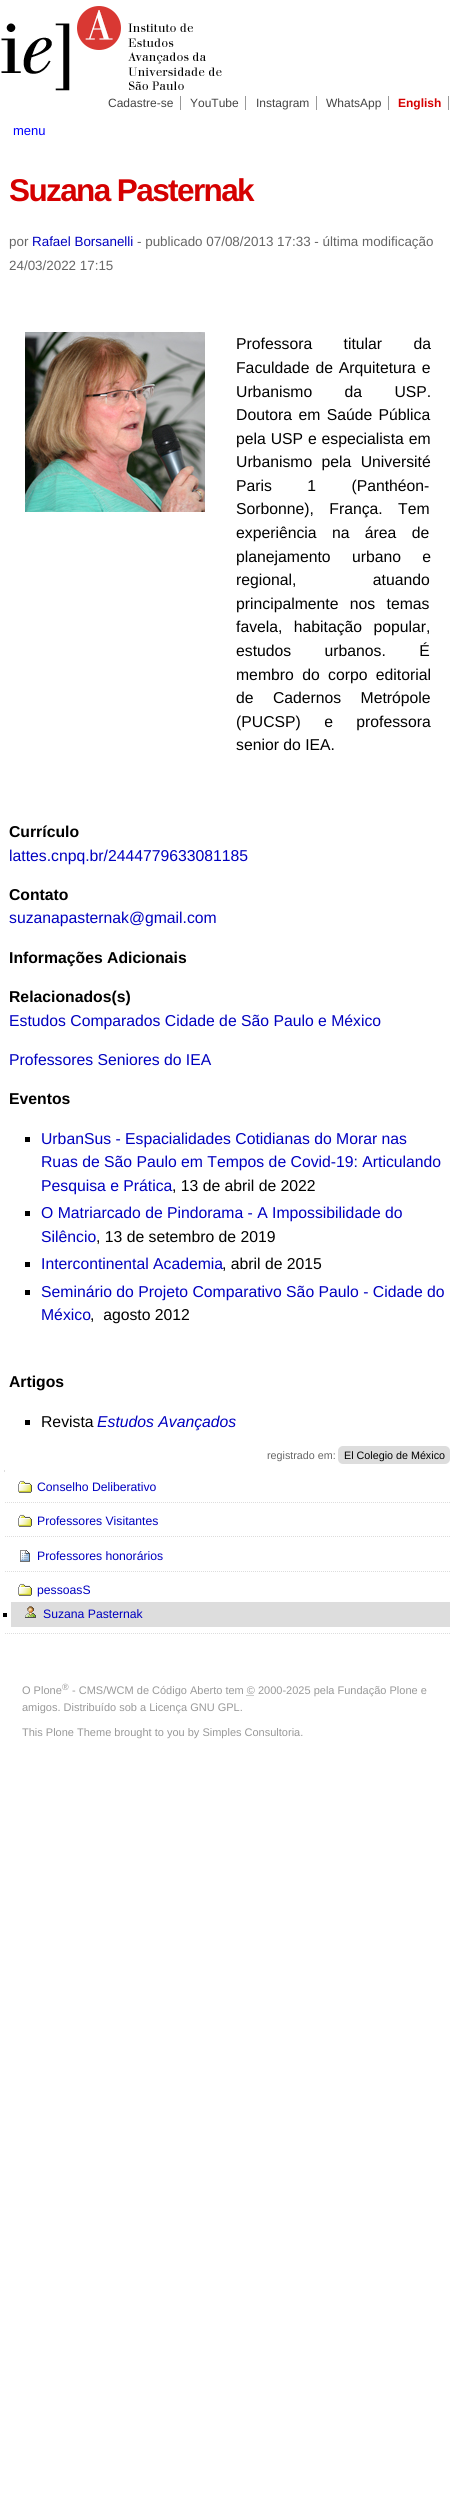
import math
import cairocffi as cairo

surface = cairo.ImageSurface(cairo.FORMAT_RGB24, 455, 2501)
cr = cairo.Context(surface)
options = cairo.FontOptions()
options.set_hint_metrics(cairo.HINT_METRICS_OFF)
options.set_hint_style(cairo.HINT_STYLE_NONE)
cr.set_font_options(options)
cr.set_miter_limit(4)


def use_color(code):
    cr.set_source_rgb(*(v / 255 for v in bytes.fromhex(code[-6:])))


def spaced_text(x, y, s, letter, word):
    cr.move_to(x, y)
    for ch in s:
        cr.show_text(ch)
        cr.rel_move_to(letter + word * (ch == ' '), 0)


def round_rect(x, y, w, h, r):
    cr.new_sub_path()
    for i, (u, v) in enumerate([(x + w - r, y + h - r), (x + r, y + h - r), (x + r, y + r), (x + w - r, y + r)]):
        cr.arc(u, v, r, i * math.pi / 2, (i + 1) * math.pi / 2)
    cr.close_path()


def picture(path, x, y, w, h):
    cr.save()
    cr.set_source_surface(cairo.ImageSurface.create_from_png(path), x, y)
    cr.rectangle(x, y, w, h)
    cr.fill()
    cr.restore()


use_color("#ffffff")
cr.paint()
picture("img1.png", 1, 6, 221, 85)
cr.select_font_face("Liberation Sans")
cr.set_font_size(12)
use_color("#444444")
cr.move_to(108, 107)
cr.show_text("Cadastre-se")
use_color("#999999")
cr.rectangle(180, 96, 1, 14)
cr.fill()
use_color("#444444")
cr.move_to(190, 107)
cr.show_text("YouTube")
use_color("#999999")
cr.rectangle(245, 96, 1, 14)
cr.fill()
use_color("#444444")
cr.move_to(256, 107)
cr.show_text("Instagram")
use_color("#999999")
cr.rectangle(316, 96, 1, 14)
cr.fill()
use_color("#444444")
cr.move_to(326, 107)
cr.show_text("WhatsApp")
use_color("#999999")
cr.rectangle(388, 96, 1, 14)
cr.fill()
cr.select_font_face("Liberation Sans", cairo.FONT_SLANT_NORMAL, cairo.FONT_WEIGHT_BOLD)
use_color("#d50000")
cr.move_to(398, 107)
cr.show_text("English")
use_color("#999999")
cr.rectangle(448, 96, 1, 14)
cr.fill()
cr.select_font_face("Liberation Sans")
cr.set_font_size(13)
use_color("#0000ff")
cr.move_to(13, 135)
cr.show_text("menu")
cr.select_font_face("Liberation Sans", cairo.FONT_SLANT_NORMAL, cairo.FONT_WEIGHT_BOLD)
cr.set_font_size(31.5)
use_color("#d50000")
spaced_text(9, 201, "Suzana Pasternak", -1.6, 0)
cr.select_font_face("Liberation Sans")
cr.set_font_size(13.4)
use_color("#666666")
cr.move_to(9, 246)
cr.show_text("por")
use_color("#0000c0")
cr.move_to(32, 246)
cr.show_text("Rafael Borsanelli")
use_color("#666666")
cr.move_to(137, 246)
cr.show_text("- publicado 07/08/2013 17:33 - última modificação")
cr.move_to(9, 270)
cr.show_text("24/03/2022 17:15")
picture("img2.png", 25, 332, 180, 180)
cr.set_font_size(15.75)
use_color("#000000")
spaced_text(236, 349, "Professora titular da", 0, 27)
spaced_text(236, 373, "Faculdade de Arquitetura e", 0, 1.5)
spaced_text(236, 397, "Urbanismo da USP.", 0, 28)
spaced_text(236, 420, "Doutora em Saúde Pública", 0, 2)
spaced_text(236, 444, "pela USP e especialista em", 0, 0.5)
spaced_text(236, 467, "Urbanismo pela Université", 0, 5)
spaced_text(236, 491, "Paris 1 (Panthéon-", 0, 31)
spaced_text(236, 514, "Sorbonne), França. Tem", 0, 11)
spaced_text(236, 538, "experiência na área de", 0, 11)
spaced_text(236, 562, "planejamento urbano e", 0, 17)
spaced_text(236, 585, "regional, atuando", 0, 72)
spaced_text(236, 609, "principalmente nos temas", 0, 7)
spaced_text(236, 632, "favela, habitação popular,", 0, 7)
spaced_text(236, 656, "estudos urbanos. É", 0, 29)
spaced_text(236, 680, "membro do corpo editorial", 0, 4)
spaced_text(236, 703, "de Cadernos Metrópole", 0, 15)
spaced_text(236, 727, "(PUCSP) e professora", 0, 19)
cr.move_to(236, 750)
cr.show_text("senior do IEA.")
cr.select_font_face("Liberation Sans", cairo.FONT_SLANT_NORMAL, cairo.FONT_WEIGHT_BOLD)
cr.move_to(9, 837)
cr.show_text("Currículo")
cr.select_font_face("Liberation Sans")
use_color("#0000c0")
cr.move_to(9, 861)
cr.show_text("lattes.cnpq.br/2444779633081185")
cr.select_font_face("Liberation Sans", cairo.FONT_SLANT_NORMAL, cairo.FONT_WEIGHT_BOLD)
use_color("#000000")
cr.move_to(9, 900)
cr.show_text("Contato")
cr.select_font_face("Liberation Sans")
use_color("#0000c0")
cr.move_to(9, 923)
cr.show_text("suzanapasternak@gmail.com")
cr.select_font_face("Liberation Sans", cairo.FONT_SLANT_NORMAL, cairo.FONT_WEIGHT_BOLD)
use_color("#000000")
cr.move_to(9, 963)
cr.show_text("Informações Adicionais")
cr.move_to(9, 1002)
cr.show_text("Relacionados(s)")
cr.select_font_face("Liberation Sans")
use_color("#0000c0")
cr.move_to(9, 1026)
cr.show_text("Estudos Comparados Cidade de São Paulo e México")
cr.move_to(9, 1065)
cr.show_text("Professores Seniores do IEA")
cr.select_font_face("Liberation Sans", cairo.FONT_SLANT_NORMAL, cairo.FONT_WEIGHT_BOLD)
use_color("#000000")
cr.move_to(9, 1104)
cr.show_text("Eventos")
cr.rectangle(25, 1137, 5, 5)
cr.fill()
cr.select_font_face("Liberation Sans")
use_color("#0000c0")
cr.move_to(41, 1144)
cr.show_text("UrbanSus - Espacialidades Cotidianas do Morar nas")
cr.move_to(41, 1167)
cr.show_text("Ruas de São Paulo em Tempos de Covid-19: Articulando")
cr.move_to(41, 1191)
cr.show_text("Pesquisa e Prática")
use_color("#000000")
cr.move_to(172, 1191)
cr.show_text(", 13 de abril de 2022")
cr.rectangle(25, 1211, 5, 5)
cr.fill()
use_color("#0000c0")
cr.move_to(41, 1218)
cr.show_text("O Matriarcado de Pindorama - A Impossibilidade do")
cr.move_to(41, 1242)
cr.show_text("Silêncio")
use_color("#000000")
cr.move_to(96, 1242)
cr.show_text(", 13 de setembro de 2019")
cr.rectangle(25, 1262, 5, 5)
cr.fill()
use_color("#0000c0")
cr.move_to(41, 1269)
cr.show_text("Intercontinental Academia")
use_color("#000000")
cr.move_to(222, 1269)
cr.show_text(", abril de 2015")
cr.rectangle(25, 1290, 5, 5)
cr.fill()
use_color("#0000c0")
cr.move_to(41, 1297)
cr.show_text("Seminário do Projeto Comparativo São Paulo - Cidade do")
cr.move_to(41, 1320)
cr.show_text("México")
use_color("#000000")
cr.move_to(90, 1320)
cr.show_text(",  agosto 2012")
cr.select_font_face("Liberation Sans", cairo.FONT_SLANT_NORMAL, cairo.FONT_WEIGHT_BOLD)
cr.move_to(9, 1387)
cr.show_text("Artigos")
cr.rectangle(25, 1420, 5, 5)
cr.fill()
cr.select_font_face("Liberation Sans")
cr.move_to(41, 1427)
cr.show_text("Revista")
cr.select_font_face("Liberation Sans", cairo.FONT_SLANT_ITALIC)
use_color("#0000c0")
cr.move_to(97, 1427)
cr.show_text("Estudos Avançados")
cr.select_font_face("Liberation Sans")
cr.set_font_size(10.75)
use_color("#666666")
cr.move_to(267, 1459)
cr.show_text("registrado em:")
use_color("#dddddd")
round_rect(338, 1446, 112, 18, 5)
cr.fill()
use_color("#000000")
cr.move_to(344, 1459)
cr.show_text("El Colegio de México")
use_color("#dddddd")
cr.rectangle(4, 1470, 1, 2)
cr.fill()
cr.new_path()
cr.move_to(5, 1502.5)
cr.line_to(450, 1502.5)
cr.set_line_width(1)
cr.set_dash([1, 1])
cr.stroke()
picture("img3.png", 18, 1480, 14, 13)
cr.set_font_size(12.2)
use_color("#0000c0")
cr.move_to(37, 1491)
cr.show_text("Conselho Deliberativo")
cr.new_path()
cr.move_to(5, 1536.5)
cr.line_to(450, 1536.5)
use_color("#dddddd")
cr.stroke()
picture("img3.png", 18, 1514, 14, 13)
use_color("#0000c0")
cr.move_to(37, 1525)
cr.show_text("Professores Visitantes")
cr.new_path()
cr.move_to(5, 1571.5)
cr.line_to(450, 1571.5)
use_color("#dddddd")
cr.stroke()
picture("img4.png", 20, 1550, 10, 12)
use_color("#0000c0")
cr.move_to(37, 1560)
cr.show_text("Professores honorários")
cr.new_path()
cr.move_to(5, 1633.5)
cr.line_to(450, 1633.5)
use_color("#dddddd")
cr.stroke()
picture("img3.png", 18, 1583, 14, 13)
use_color("#0000c0")
cr.move_to(37, 1594)
cr.show_text("pessoasS")
use_color("#000000")
cr.rectangle(3, 1613, 4, 4)
cr.fill()
use_color("#dddddd")
cr.rectangle(11, 1602, 439, 25)
cr.fill()
picture("img5.png", 25, 1606, 11, 12)
use_color("#0000c0")
cr.move_to(43, 1618)
cr.show_text("Suzana Pasternak")
cr.set_font_size(11)
use_color("#999999")
cr.move_to(22, 1694)
cr.show_text("O Plone")
cr.set_font_size(9)
cr.move_to(62, 1690)
cr.show_text("®")
cr.set_font_size(11)
cr.move_to(72, 1694)
cr.show_text("- CMS/WCM de Código Aberto tem © 2000-2025 pela Fundação Plone e")
cr.new_path()
cr.move_to(246.5, 1695.5)
cr.line_to(254.5, 1695.5)
cr.stroke()
cr.move_to(22, 1711)
cr.show_text("amigos. Distribuído sob a Licença GNU GPL.")
cr.move_to(22, 1736)
cr.show_text("This Plone Theme brought to you by Simples Consultoria.")
surface.write_to_png("result.png")
